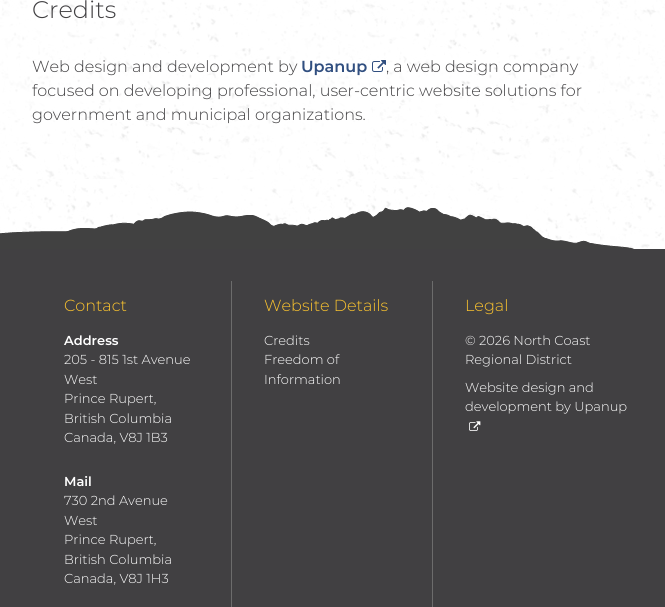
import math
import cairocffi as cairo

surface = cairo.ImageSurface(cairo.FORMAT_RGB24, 665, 607)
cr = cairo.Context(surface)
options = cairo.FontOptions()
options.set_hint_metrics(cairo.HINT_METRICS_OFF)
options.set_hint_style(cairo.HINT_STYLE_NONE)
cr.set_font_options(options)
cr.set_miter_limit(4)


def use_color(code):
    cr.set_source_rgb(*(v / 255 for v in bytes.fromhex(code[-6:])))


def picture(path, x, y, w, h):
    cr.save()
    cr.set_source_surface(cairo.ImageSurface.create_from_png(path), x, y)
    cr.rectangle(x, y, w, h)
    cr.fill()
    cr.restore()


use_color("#ffffff")
cr.paint()
picture("img1.png", 0, 0, 665, 249)
cr.select_font_face("Montserrat Light")
cr.set_font_size(24)
use_color("#414042")
cr.move_to(32, 18)
cr.show_text("Credits")
cr.set_font_size(16)
cr.move_to(32, 72)
cr.show_text("Web design and development by")
cr.select_font_face("Montserrat SemiBold")
use_color("#314f80")
cr.move_to(301, 72)
cr.show_text("Upanup")
picture("img2.png", 372, 60, 14, 12)
cr.select_font_face("Montserrat Light")
use_color("#414042")
cr.move_to(386, 72)
cr.show_text(", a web design company")
cr.move_to(32, 96)
cr.show_text("focused on developing professional, user-centric website solutions for")
cr.move_to(32, 120)
cr.show_text("government and municipal organizations.")
picture("img3.png", 0, 207, 634, 42)
cr.rectangle(0, 249, 665, 358)
cr.fill()
use_color("#6c6c6c")
cr.rectangle(231, 281, 1, 326)
cr.fill()
use_color("#fdc52e")
cr.move_to(64, 311)
cr.show_text("Contact")
cr.select_font_face("Montserrat SemiBold")
cr.set_font_size(13)
use_color("#ffffff")
cr.move_to(64, 345)
cr.show_text("Address")
cr.select_font_face("Montserrat Light")
cr.move_to(64, 364)
cr.show_text("205 - 815 1st Avenue")
cr.move_to(64, 384)
cr.show_text("West")
cr.move_to(64, 403)
cr.show_text("Prince Rupert,")
cr.move_to(64, 423)
cr.show_text("British Columbia")
cr.move_to(64, 442)
cr.show_text("Canada, V8J 1B3")
cr.select_font_face("Montserrat SemiBold")
cr.move_to(64, 486)
cr.show_text("Mail")
cr.select_font_face("Montserrat Light")
cr.move_to(64, 505)
cr.show_text("730 2nd Avenue")
cr.move_to(64, 525)
cr.show_text("West")
cr.move_to(64, 544)
cr.show_text("Prince Rupert,")
cr.move_to(64, 564)
cr.show_text("British Columbia")
cr.move_to(64, 583)
cr.show_text("Canada, V8J 1H3")
use_color("#6c6c6c")
cr.rectangle(432, 281, 1, 326)
cr.fill()
cr.set_font_size(16)
use_color("#fdc52e")
cr.move_to(264, 311)
cr.show_text("Website Details")
cr.set_font_size(13)
use_color("#ffffff")
cr.move_to(264, 345)
cr.show_text("Credits")
cr.move_to(264, 364)
cr.show_text("Freedom of")
cr.move_to(264, 384)
cr.show_text("Information")
cr.set_font_size(16)
use_color("#fdc52e")
cr.move_to(465, 311)
cr.show_text("Legal")
cr.set_font_size(13)
use_color("#ffffff")
cr.move_to(465, 345)
cr.show_text("© 2026 North Coast")
cr.move_to(465, 364)
cr.show_text("Regional District")
cr.move_to(465, 392)
cr.show_text("Website design and")
cr.move_to(465, 411)
cr.show_text("development by Upanup")
picture("img4.png", 469, 421, 12, 10)
surface.write_to_png("result.png")
